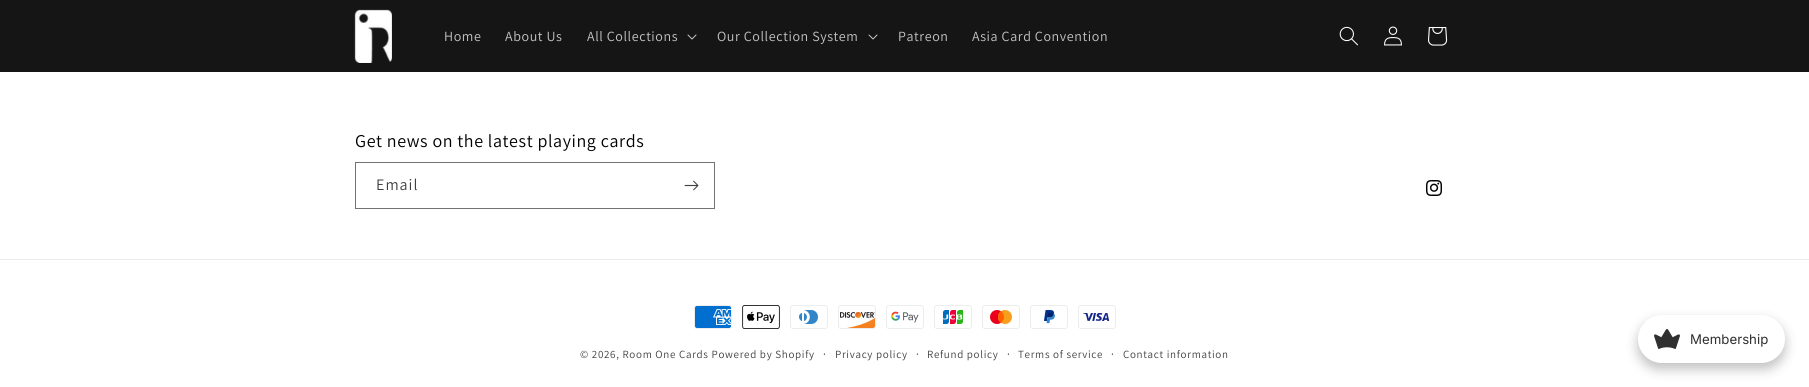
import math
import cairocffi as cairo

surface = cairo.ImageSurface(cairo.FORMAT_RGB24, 1809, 387)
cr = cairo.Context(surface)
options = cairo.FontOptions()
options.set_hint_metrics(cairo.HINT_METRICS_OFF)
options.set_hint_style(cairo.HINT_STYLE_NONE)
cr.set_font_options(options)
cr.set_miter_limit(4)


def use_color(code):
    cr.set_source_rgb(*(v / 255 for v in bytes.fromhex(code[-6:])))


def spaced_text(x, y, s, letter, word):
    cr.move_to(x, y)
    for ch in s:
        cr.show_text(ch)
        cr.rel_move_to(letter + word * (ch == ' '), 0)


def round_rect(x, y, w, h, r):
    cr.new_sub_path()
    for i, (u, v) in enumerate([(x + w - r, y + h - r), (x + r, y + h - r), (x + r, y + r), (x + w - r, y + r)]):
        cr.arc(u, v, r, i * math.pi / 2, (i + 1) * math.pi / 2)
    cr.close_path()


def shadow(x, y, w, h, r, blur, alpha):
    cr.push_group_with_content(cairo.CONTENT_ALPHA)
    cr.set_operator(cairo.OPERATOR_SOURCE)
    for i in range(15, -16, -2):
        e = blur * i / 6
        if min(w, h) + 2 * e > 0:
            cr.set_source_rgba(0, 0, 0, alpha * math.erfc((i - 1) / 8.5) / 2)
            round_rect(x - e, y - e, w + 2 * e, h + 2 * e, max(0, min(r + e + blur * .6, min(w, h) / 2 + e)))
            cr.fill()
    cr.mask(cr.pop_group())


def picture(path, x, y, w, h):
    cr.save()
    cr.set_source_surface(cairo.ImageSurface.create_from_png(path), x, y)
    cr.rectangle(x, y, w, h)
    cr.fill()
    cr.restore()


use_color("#ffffff")
cr.paint()
use_color("#151515")
cr.rectangle(0, 0, 1809, 72)
cr.fill()
picture("img1.png", 354, 9, 38, 54)
cr.select_font_face("Assistant")
cr.set_font_size(14)
use_color("#c5c5c5")
spaced_text(444, 41, "Home", 0.6, 0)
spaced_text(505, 41, "About Us", 0.6, 0)
spaced_text(587, 41, "All Collections", 0.6, 0)
picture("img2.png", 687, 34, 10, 6)
spaced_text(717, 41, "Our Collection System", 0.6, 0)
picture("img2.png", 868, 34, 10, 6)
spaced_text(898, 41, "Patreon", 0.6, 0)
spaced_text(972, 41, "Asia Card Convention", 0.6, 0)
picture("img3.png", 1339, 26, 19, 20)
picture("img4.png", 1384, 26, 18, 20)
picture("img5.png", 1428, 27, 20, 19)
cr.set_font_size(18)
use_color("#000000")
spaced_text(355, 147, "Get news on the latest playing cards", 0.6, 0)
cr.rectangle(355.5, 162.5, 359, 46)
use_color("#737373")
cr.set_line_width(1)
cr.stroke()
cr.set_font_size(16)
use_color("#404040")
spaced_text(376, 190, "Email", 1, 0)
picture("img6.png", 684, 180, 15, 11)
picture("img7.png", 1426, 180, 16, 16)
use_color("#ebebeb")
cr.rectangle(0, 259, 1809, 1)
cr.fill()
picture("img8.png", 694, 305, 38, 24)
picture("img9.png", 742, 305, 38, 24)
picture("img10.png", 790, 305, 38, 24)
picture("img11.png", 838, 305, 38, 24)
picture("img12.png", 886, 305, 38, 24)
picture("img13.png", 934, 305, 38, 24)
picture("img14.png", 982, 305, 38, 24)
picture("img15.png", 1030, 305, 38, 24)
picture("img16.png", 1078, 305, 38, 24)
cr.set_font_size(11)
use_color("#404040")
spaced_text(580, 358, "© 2026, Room One Cards Powered by Shopify", 0.7, 0)
cr.set_font_size(12)
spaced_text(823, 358, "·", 0.7, 0)
cr.set_font_size(11)
spaced_text(835, 358, "Privacy policy", 0.7, 0)
cr.set_font_size(12)
spaced_text(916, 358, "·", 0.7, 0)
cr.set_font_size(11)
spaced_text(927, 358, "Refund policy", 0.7, 0)
cr.set_font_size(12)
spaced_text(1007, 358, "·", 0.7, 0)
cr.set_font_size(11)
spaced_text(1018, 358, "Terms of service", 0.7, 0)
cr.set_font_size(12)
spaced_text(1111, 358, "·", 0.7, 0)
cr.set_font_size(11)
spaced_text(1123, 358, "Contact information", 0.7, 0)
use_color("#000000")
shadow(1638, 321, 147, 48, 24, 6, 0.25)
use_color("#ffffff")
round_rect(1638, 315, 147, 48, 24)
cr.fill()
picture("img17.png", 1654, 329, 26, 20)
cr.select_font_face("Inter")
cr.set_font_size(13.25)
use_color("#303030")
cr.move_to(1690, 344)
cr.show_text("Membership")
surface.write_to_png("result.png")
